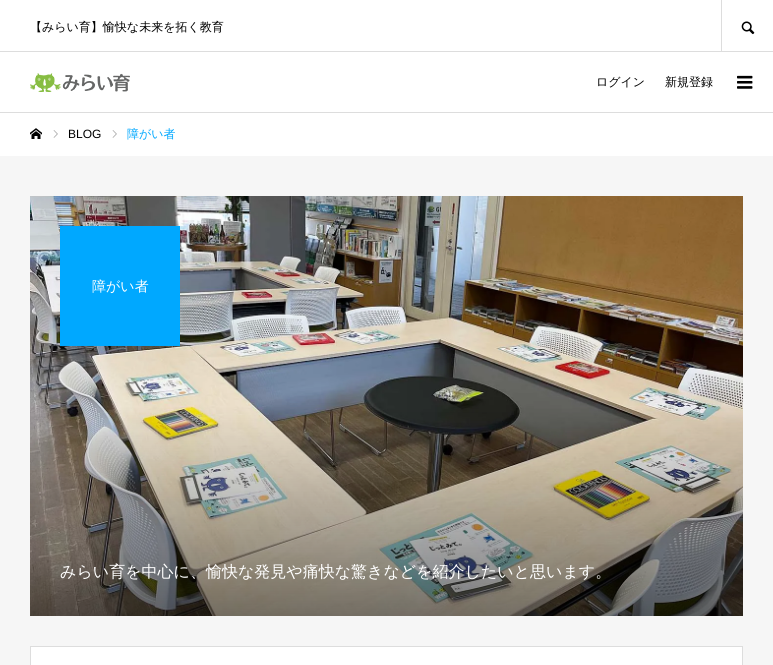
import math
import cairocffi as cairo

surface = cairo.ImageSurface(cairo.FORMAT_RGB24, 773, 665)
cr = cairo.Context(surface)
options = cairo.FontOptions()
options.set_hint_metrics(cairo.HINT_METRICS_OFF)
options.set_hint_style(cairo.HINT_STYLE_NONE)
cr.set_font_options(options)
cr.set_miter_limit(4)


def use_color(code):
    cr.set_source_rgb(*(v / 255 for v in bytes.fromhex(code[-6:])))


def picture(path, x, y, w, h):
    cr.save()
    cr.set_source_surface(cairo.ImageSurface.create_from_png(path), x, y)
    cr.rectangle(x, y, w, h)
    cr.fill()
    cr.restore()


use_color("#f6f6f6")
cr.paint()
use_color("#ffffff")
cr.rectangle(0, 0, 773, 112)
cr.fill()
use_color("#dddddd")
cr.rectangle(0, 112, 773, 1)
cr.fill()
cr.select_font_face("WenQuanYi Zen Hei Medium")
cr.set_font_size(12)
use_color("#000000")
cr.move_to(30, 31)
cr.show_text("【みらい育】愉快な未来を拓く教育")
picture("img1.png", 30, 73, 100, 19)
use_color("#dddddd")
cr.rectangle(0, 51, 773, 1)
cr.fill()
cr.rectangle(721, 0, 1, 51)
cr.fill()
picture("img2.png", 741, 21, 14, 14)
use_color("#000000")
cr.move_to(596, 86)
cr.show_text("ログイン")
cr.move_to(665, 86)
cr.show_text("新規登録")
picture("img3.png", 737, 75, 16, 14)
use_color("#ffffff")
cr.rectangle(0, 113, 773, 43)
cr.fill()
picture("img4.png", 30, 128, 12, 11)
picture("img5.png", 53, 130, 5, 8)
cr.select_font_face("Liberation Sans")
use_color("#000000")
cr.move_to(68, 138)
cr.show_text("BLOG")
picture("img5.png", 112, 130, 5, 8)
cr.select_font_face("WenQuanYi Zen Hei Medium")
use_color("#00a8ff")
cr.move_to(127, 138)
cr.show_text("障がい者")
picture("img6.png", 30, 196, 713, 420)
cr.rectangle(60, 226, 120, 120)
cr.fill()
cr.set_font_size(14)
use_color("#ffffff")
cr.move_to(92, 291)
cr.show_text("障がい者")
cr.set_font_size(16)
cr.move_to(60, 577)
cr.show_text("みらい育を中心に、愉快な発見や痛快な驚きなどを紹介したいと思います。")
cr.rectangle(30.5, 646.5, 712, 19)
cr.fill_preserve()
use_color("#dddddd")
cr.set_line_width(1)
cr.stroke()
surface.write_to_png("result.png")
